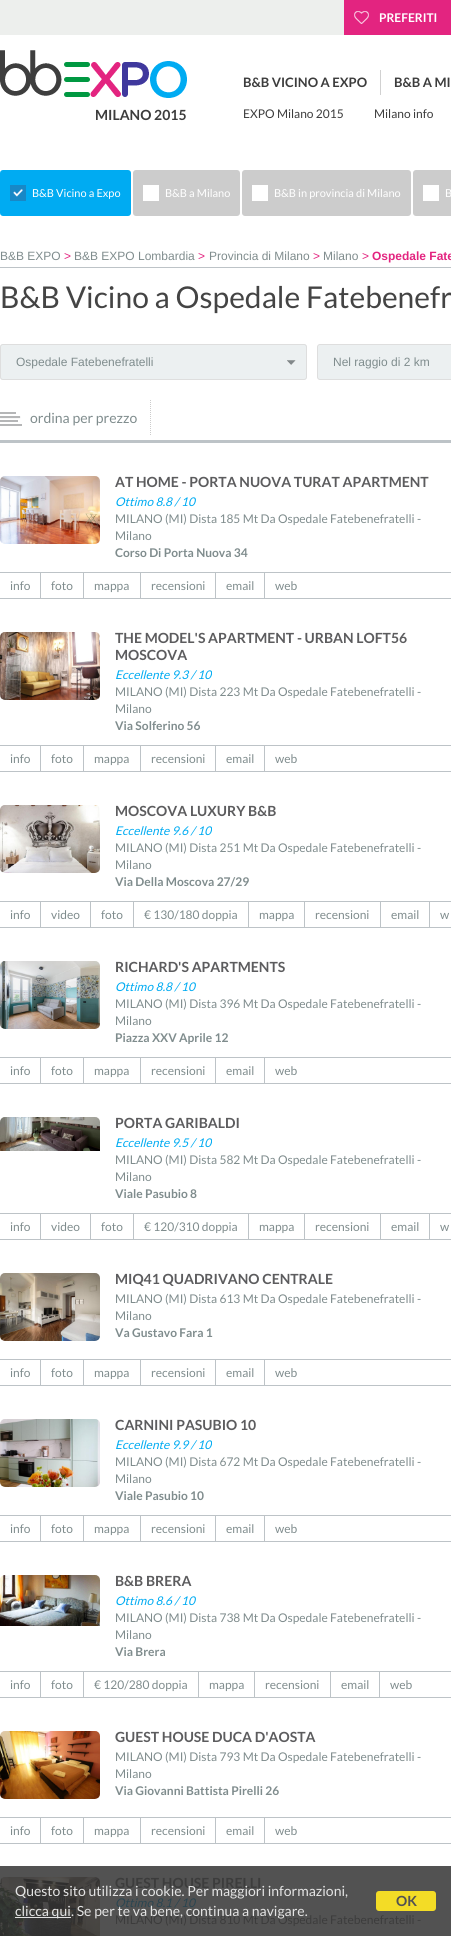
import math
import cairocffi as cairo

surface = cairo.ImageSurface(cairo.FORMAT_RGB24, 451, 1936)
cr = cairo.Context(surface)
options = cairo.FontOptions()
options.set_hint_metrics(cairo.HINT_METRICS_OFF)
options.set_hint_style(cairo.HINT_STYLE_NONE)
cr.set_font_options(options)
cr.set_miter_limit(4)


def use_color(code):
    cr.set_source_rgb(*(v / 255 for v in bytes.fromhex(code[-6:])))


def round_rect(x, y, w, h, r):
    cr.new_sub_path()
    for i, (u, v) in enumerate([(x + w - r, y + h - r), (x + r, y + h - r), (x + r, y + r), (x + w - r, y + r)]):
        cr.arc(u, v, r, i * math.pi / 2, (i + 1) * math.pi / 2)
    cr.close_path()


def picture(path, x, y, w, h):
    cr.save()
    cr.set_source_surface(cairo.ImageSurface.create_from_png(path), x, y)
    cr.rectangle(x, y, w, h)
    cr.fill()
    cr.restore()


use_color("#ffffff")
cr.paint()
use_color("#525252")
cr.rectangle(0, 1866, 451, 70)
cr.fill()
use_color("#edefed")
cr.rectangle(0, 0, 344, 35)
cr.fill()
use_color("#e32480")
cr.rectangle(344, 0, 107, 35)
cr.fill()
picture("img1.png", 354, 11, 15, 13)
cr.select_font_face("Lato", cairo.FONT_SLANT_NORMAL, cairo.FONT_WEIGHT_BOLD)
cr.set_font_size(12)
use_color("#ffffff")
cr.move_to(379, 22)
cr.show_text("PREFERITI")
picture("img2.png", 0, 50, 187, 48)
cr.set_font_size(14)
use_color("#3c3c3c")
cr.move_to(95, 120)
cr.show_text("MILANO 2015")
cr.set_font_size(13)
cr.move_to(243, 87)
cr.show_text("B&B VICINO A EXPO")
use_color("#d1d1d1")
cr.rectangle(380, 70, 1, 25)
cr.fill()
use_color("#3c3c3c")
cr.move_to(394, 87)
cr.show_text("B&B A MI")
cr.select_font_face("Lato")
cr.set_font_size(12)
cr.move_to(243, 118)
cr.show_text("EXPO Milano 2015")
cr.move_to(374, 118)
cr.show_text("Milano info")
use_color("#00abf2")
round_rect(0, 170, 131, 46, 3)
cr.fill()
picture("img3.png", 10, 185, 16, 16)
cr.set_font_size(11)
use_color("#ffffff")
cr.move_to(32, 197)
cr.show_text("B&B Vicino a Expo")
use_color("#cccccc")
round_rect(133, 170, 107, 46, 3)
cr.fill()
use_color("#ffffff")
cr.rectangle(143, 185, 16, 16)
cr.fill()
cr.move_to(165, 197)
cr.show_text("B&B a Milano")
use_color("#cccccc")
round_rect(242, 170, 169, 46, 3)
cr.fill()
use_color("#ffffff")
cr.rectangle(252, 185, 16, 16)
cr.fill()
cr.move_to(274, 197)
cr.show_text("B&B in provincia di Milano")
use_color("#cccccc")
round_rect(413, 170, 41, 46, 3)
cr.fill()
use_color("#ffffff")
cr.rectangle(423, 185, 16, 16)
cr.fill()
cr.move_to(445, 197)
cr.show_text("B")
use_color("#bdc3c7")
cr.rectangle(0, 267, 451, 1)
cr.fill()
cr.select_font_face("Liberation Sans")
cr.set_font_size(12)
use_color("#7f8c8d")
cr.move_to(0, 260)
cr.show_text("B&B EXPO")
use_color("#e32480")
cr.move_to(64, 260)
cr.show_text(">")
use_color("#7f8c8d")
cr.move_to(74, 260)
cr.show_text("B&B EXPO Lombardia")
use_color("#e32480")
cr.move_to(198, 260)
cr.show_text(">")
use_color("#7f8c8d")
cr.move_to(209, 260)
cr.show_text("Provincia di Milano")
use_color("#e32480")
cr.move_to(313, 260)
cr.show_text(">")
use_color("#7f8c8d")
cr.move_to(323, 260)
cr.show_text("Milano")
use_color("#e32480")
cr.move_to(362, 260)
cr.show_text(">")
cr.select_font_face("Liberation Sans", cairo.FONT_SLANT_NORMAL, cairo.FONT_WEIGHT_BOLD)
cr.move_to(372, 260)
cr.show_text("Ospedale Fate")
cr.select_font_face("Lato")
cr.set_font_size(30)
use_color("#444444")
cr.move_to(0, 308)
cr.show_text("B&B Vicino a Ospedale Fatebenefr")
use_color("#ecf0f1")
round_rect(0, 344, 307, 36, 3)
cr.fill()
picture("img4.png", 287, 360, 9, 5)
round_rect(0.5, 344.5, 306, 35, 2.5)
use_color("#dedede")
cr.set_line_width(1)
cr.stroke()
cr.select_font_face("Liberation Sans")
cr.set_font_size(12)
use_color("#7f8c8d")
cr.move_to(16, 366)
cr.show_text("Ospedale Fatebenefratelli")
use_color("#ecf0f1")
round_rect(317.5, 344.5, 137, 35, 2.5)
cr.fill_preserve()
use_color("#dedede")
cr.stroke()
use_color("#7f8c8d")
cr.move_to(333, 366)
cr.show_text("Nel raggio di 2 km")
use_color("#bdc3c7")
cr.rectangle(0, 440, 451, 3)
cr.fill()
cr.new_path()
cr.move_to(150.5, 400)
cr.line_to(150.5, 435)
use_color("#cccccc")
cr.set_dash([1, 1])
cr.stroke()
picture("img5.png", 0, 412, 22, 14)
cr.select_font_face("Lato")
cr.set_font_size(14)
use_color("#7f8c8d")
cr.move_to(30, 423)
cr.show_text("ordina per prezzo")
picture("img6.png", 0, 476, 100, 68)
cr.select_font_face("Lato", cairo.FONT_SLANT_NORMAL, cairo.FONT_WEIGHT_BOLD)
use_color("#5c5c5e")
cr.move_to(115, 487)
cr.show_text("AT HOME - PORTA NUOVA TURAT APARTMENT")
cr.select_font_face("Lato", cairo.FONT_SLANT_ITALIC)
cr.set_font_size(12)
use_color("#00abf2")
cr.move_to(115, 506)
cr.show_text("Ottimo 8.8 / 10")
cr.select_font_face("Lato")
use_color("#7f8c8d")
cr.move_to(115, 523)
cr.show_text("MILANO (MI) Dista 185 Mt Da Ospedale Fatebenefratelli -")
cr.move_to(115, 540)
cr.show_text("Milano")
cr.select_font_face("Lato", cairo.FONT_SLANT_NORMAL, cairo.FONT_WEIGHT_BOLD)
cr.move_to(115, 557)
cr.show_text("Corso Di Porta Nuova 34")
use_color("#bdc3c7")
cr.rectangle(0, 572, 451, 1)
cr.fill()
cr.rectangle(0, 598, 451, 1)
cr.fill()
cr.rectangle(40, 573, 1, 25)
cr.fill()
cr.select_font_face("Lato")
use_color("#7f8c8d")
cr.move_to(10, 590)
cr.show_text("info")
use_color("#bdc3c7")
cr.rectangle(83, 573, 1, 25)
cr.fill()
use_color("#7f8c8d")
cr.move_to(51, 590)
cr.show_text("foto")
use_color("#bdc3c7")
cr.rectangle(140, 573, 1, 25)
cr.fill()
use_color("#7f8c8d")
cr.move_to(94, 590)
cr.show_text("mappa")
use_color("#bdc3c7")
cr.rectangle(215, 573, 1, 25)
cr.fill()
use_color("#7f8c8d")
cr.move_to(151, 590)
cr.show_text("recensioni")
use_color("#bdc3c7")
cr.rectangle(264, 573, 1, 25)
cr.fill()
use_color("#7f8c8d")
cr.move_to(226, 590)
cr.show_text("email")
cr.move_to(275, 590)
cr.show_text("web")
picture("img7.png", 0, 632, 100, 68)
cr.select_font_face("Lato", cairo.FONT_SLANT_NORMAL, cairo.FONT_WEIGHT_BOLD)
cr.set_font_size(14)
use_color("#5c5c5e")
cr.move_to(115, 643)
cr.show_text("THE MODEL'S APARTMENT - URBAN LOFT56")
cr.move_to(115, 660)
cr.show_text("MOSCOVA")
cr.select_font_face("Lato", cairo.FONT_SLANT_ITALIC)
cr.set_font_size(12)
use_color("#00abf2")
cr.move_to(115, 679)
cr.show_text("Eccellente 9.3 / 10")
cr.select_font_face("Lato")
use_color("#7f8c8d")
cr.move_to(115, 696)
cr.show_text("MILANO (MI) Dista 223 Mt Da Ospedale Fatebenefratelli -")
cr.move_to(115, 713)
cr.show_text("Milano")
cr.select_font_face("Lato", cairo.FONT_SLANT_NORMAL, cairo.FONT_WEIGHT_BOLD)
cr.move_to(115, 730)
cr.show_text("Via Solferino 56")
use_color("#bdc3c7")
cr.rectangle(0, 745, 451, 1)
cr.fill()
cr.rectangle(0, 771, 451, 1)
cr.fill()
cr.rectangle(40, 746, 1, 25)
cr.fill()
cr.select_font_face("Lato")
use_color("#7f8c8d")
cr.move_to(10, 763)
cr.show_text("info")
use_color("#bdc3c7")
cr.rectangle(83, 746, 1, 25)
cr.fill()
use_color("#7f8c8d")
cr.move_to(51, 763)
cr.show_text("foto")
use_color("#bdc3c7")
cr.rectangle(140, 746, 1, 25)
cr.fill()
use_color("#7f8c8d")
cr.move_to(94, 763)
cr.show_text("mappa")
use_color("#bdc3c7")
cr.rectangle(215, 746, 1, 25)
cr.fill()
use_color("#7f8c8d")
cr.move_to(151, 763)
cr.show_text("recensioni")
use_color("#bdc3c7")
cr.rectangle(264, 746, 1, 25)
cr.fill()
use_color("#7f8c8d")
cr.move_to(226, 763)
cr.show_text("email")
cr.move_to(275, 763)
cr.show_text("web")
picture("img8.png", 0, 805, 100, 68)
cr.select_font_face("Lato", cairo.FONT_SLANT_NORMAL, cairo.FONT_WEIGHT_BOLD)
cr.set_font_size(14)
use_color("#5c5c5e")
cr.move_to(115, 816)
cr.show_text("MOSCOVA LUXURY B&B")
cr.select_font_face("Lato", cairo.FONT_SLANT_ITALIC)
cr.set_font_size(12)
use_color("#00abf2")
cr.move_to(115, 835)
cr.show_text("Eccellente 9.6 / 10")
cr.select_font_face("Lato")
use_color("#7f8c8d")
cr.move_to(115, 852)
cr.show_text("MILANO (MI) Dista 251 Mt Da Ospedale Fatebenefratelli -")
cr.move_to(115, 869)
cr.show_text("Milano")
cr.select_font_face("Lato", cairo.FONT_SLANT_NORMAL, cairo.FONT_WEIGHT_BOLD)
cr.move_to(115, 886)
cr.show_text("Via Della Moscova 27/29")
use_color("#bdc3c7")
cr.rectangle(0, 901, 451, 1)
cr.fill()
cr.rectangle(0, 927, 451, 1)
cr.fill()
cr.rectangle(40, 902, 1, 25)
cr.fill()
cr.select_font_face("Lato")
use_color("#7f8c8d")
cr.move_to(10, 919)
cr.show_text("info")
use_color("#bdc3c7")
cr.rectangle(90, 902, 1, 25)
cr.fill()
use_color("#7f8c8d")
cr.move_to(51, 919)
cr.show_text("video")
use_color("#bdc3c7")
cr.rectangle(133, 902, 1, 25)
cr.fill()
use_color("#7f8c8d")
cr.move_to(101, 919)
cr.show_text("foto")
use_color("#bdc3c7")
cr.rectangle(248, 902, 1, 25)
cr.fill()
use_color("#7f8c8d")
cr.move_to(144, 919)
cr.show_text("€ 130/180 doppia")
use_color("#bdc3c7")
cr.rectangle(304, 902, 1, 25)
cr.fill()
use_color("#7f8c8d")
cr.move_to(259, 919)
cr.show_text("mappa")
use_color("#bdc3c7")
cr.rectangle(380, 902, 1, 25)
cr.fill()
use_color("#7f8c8d")
cr.move_to(315, 919)
cr.show_text("recensioni")
use_color("#bdc3c7")
cr.rectangle(429, 902, 1, 25)
cr.fill()
use_color("#7f8c8d")
cr.move_to(391, 919)
cr.show_text("email")
cr.move_to(440, 919)
cr.show_text("w")
picture("img9.png", 0, 961, 100, 68)
cr.select_font_face("Lato", cairo.FONT_SLANT_NORMAL, cairo.FONT_WEIGHT_BOLD)
cr.set_font_size(14)
use_color("#5c5c5e")
cr.move_to(115, 972)
cr.show_text("RICHARD'S APARTMENTS")
cr.select_font_face("Lato", cairo.FONT_SLANT_ITALIC)
cr.set_font_size(12)
use_color("#00abf2")
cr.move_to(115, 991)
cr.show_text("Ottimo 8.8 / 10")
cr.select_font_face("Lato")
use_color("#7f8c8d")
cr.move_to(115, 1008)
cr.show_text("MILANO (MI) Dista 396 Mt Da Ospedale Fatebenefratelli -")
cr.move_to(115, 1025)
cr.show_text("Milano")
cr.select_font_face("Lato", cairo.FONT_SLANT_NORMAL, cairo.FONT_WEIGHT_BOLD)
cr.move_to(115, 1042)
cr.show_text("Piazza XXV Aprile 12")
use_color("#bdc3c7")
cr.rectangle(0, 1057, 451, 1)
cr.fill()
cr.rectangle(0, 1083, 451, 1)
cr.fill()
cr.rectangle(40, 1058, 1, 25)
cr.fill()
cr.select_font_face("Lato")
use_color("#7f8c8d")
cr.move_to(10, 1075)
cr.show_text("info")
use_color("#bdc3c7")
cr.rectangle(83, 1058, 1, 25)
cr.fill()
use_color("#7f8c8d")
cr.move_to(51, 1075)
cr.show_text("foto")
use_color("#bdc3c7")
cr.rectangle(140, 1058, 1, 25)
cr.fill()
use_color("#7f8c8d")
cr.move_to(94, 1075)
cr.show_text("mappa")
use_color("#bdc3c7")
cr.rectangle(215, 1058, 1, 25)
cr.fill()
use_color("#7f8c8d")
cr.move_to(151, 1075)
cr.show_text("recensioni")
use_color("#bdc3c7")
cr.rectangle(264, 1058, 1, 25)
cr.fill()
use_color("#7f8c8d")
cr.move_to(226, 1075)
cr.show_text("email")
cr.move_to(275, 1075)
cr.show_text("web")
picture("img10.png", 0, 1117, 100, 34)
cr.select_font_face("Lato", cairo.FONT_SLANT_NORMAL, cairo.FONT_WEIGHT_BOLD)
cr.set_font_size(14)
use_color("#5c5c5e")
cr.move_to(115, 1128)
cr.show_text("PORTA GARIBALDI")
cr.select_font_face("Lato", cairo.FONT_SLANT_ITALIC)
cr.set_font_size(12)
use_color("#00abf2")
cr.move_to(115, 1147)
cr.show_text("Eccellente 9.5 / 10")
cr.select_font_face("Lato")
use_color("#7f8c8d")
cr.move_to(115, 1164)
cr.show_text("MILANO (MI) Dista 582 Mt Da Ospedale Fatebenefratelli -")
cr.move_to(115, 1181)
cr.show_text("Milano")
cr.select_font_face("Lato", cairo.FONT_SLANT_NORMAL, cairo.FONT_WEIGHT_BOLD)
cr.move_to(115, 1198)
cr.show_text("Viale Pasubio 8")
use_color("#bdc3c7")
cr.rectangle(0, 1213, 451, 1)
cr.fill()
cr.rectangle(0, 1239, 451, 1)
cr.fill()
cr.rectangle(40, 1214, 1, 25)
cr.fill()
cr.select_font_face("Lato")
use_color("#7f8c8d")
cr.move_to(10, 1231)
cr.show_text("info")
use_color("#bdc3c7")
cr.rectangle(90, 1214, 1, 25)
cr.fill()
use_color("#7f8c8d")
cr.move_to(51, 1231)
cr.show_text("video")
use_color("#bdc3c7")
cr.rectangle(133, 1214, 1, 25)
cr.fill()
use_color("#7f8c8d")
cr.move_to(101, 1231)
cr.show_text("foto")
use_color("#bdc3c7")
cr.rectangle(248, 1214, 1, 25)
cr.fill()
use_color("#7f8c8d")
cr.move_to(144, 1231)
cr.show_text("€ 120/310 doppia")
use_color("#bdc3c7")
cr.rectangle(304, 1214, 1, 25)
cr.fill()
use_color("#7f8c8d")
cr.move_to(259, 1231)
cr.show_text("mappa")
use_color("#bdc3c7")
cr.rectangle(380, 1214, 1, 25)
cr.fill()
use_color("#7f8c8d")
cr.move_to(315, 1231)
cr.show_text("recensioni")
use_color("#bdc3c7")
cr.rectangle(429, 1214, 1, 25)
cr.fill()
use_color("#7f8c8d")
cr.move_to(391, 1231)
cr.show_text("email")
cr.move_to(440, 1231)
cr.show_text("w")
picture("img11.png", 0, 1273, 100, 68)
cr.select_font_face("Lato", cairo.FONT_SLANT_NORMAL, cairo.FONT_WEIGHT_BOLD)
cr.set_font_size(14)
use_color("#5c5c5e")
cr.move_to(115, 1284)
cr.show_text("MIQ41 QUADRIVANO CENTRALE")
cr.select_font_face("Lato")
cr.set_font_size(12)
use_color("#7f8c8d")
cr.move_to(115, 1303)
cr.show_text("MILANO (MI) Dista 613 Mt Da Ospedale Fatebenefratelli -")
cr.move_to(115, 1320)
cr.show_text("Milano")
cr.select_font_face("Lato", cairo.FONT_SLANT_NORMAL, cairo.FONT_WEIGHT_BOLD)
cr.move_to(115, 1337)
cr.show_text("Va Gustavo Fara 1")
use_color("#bdc3c7")
cr.rectangle(0, 1359, 451, 1)
cr.fill()
cr.rectangle(0, 1385, 451, 1)
cr.fill()
cr.rectangle(40, 1360, 1, 25)
cr.fill()
cr.select_font_face("Lato")
use_color("#7f8c8d")
cr.move_to(10, 1377)
cr.show_text("info")
use_color("#bdc3c7")
cr.rectangle(83, 1360, 1, 25)
cr.fill()
use_color("#7f8c8d")
cr.move_to(51, 1377)
cr.show_text("foto")
use_color("#bdc3c7")
cr.rectangle(140, 1360, 1, 25)
cr.fill()
use_color("#7f8c8d")
cr.move_to(94, 1377)
cr.show_text("mappa")
use_color("#bdc3c7")
cr.rectangle(215, 1360, 1, 25)
cr.fill()
use_color("#7f8c8d")
cr.move_to(151, 1377)
cr.show_text("recensioni")
use_color("#bdc3c7")
cr.rectangle(264, 1360, 1, 25)
cr.fill()
use_color("#7f8c8d")
cr.move_to(226, 1377)
cr.show_text("email")
cr.move_to(275, 1377)
cr.show_text("web")
picture("img12.png", 0, 1419, 100, 68)
cr.select_font_face("Lato", cairo.FONT_SLANT_NORMAL, cairo.FONT_WEIGHT_BOLD)
cr.set_font_size(14)
use_color("#5c5c5e")
cr.move_to(115, 1430)
cr.show_text("CARNINI PASUBIO 10")
cr.select_font_face("Lato", cairo.FONT_SLANT_ITALIC)
cr.set_font_size(12)
use_color("#00abf2")
cr.move_to(115, 1449)
cr.show_text("Eccellente 9.9 / 10")
cr.select_font_face("Lato")
use_color("#7f8c8d")
cr.move_to(115, 1466)
cr.show_text("MILANO (MI) Dista 672 Mt Da Ospedale Fatebenefratelli -")
cr.move_to(115, 1483)
cr.show_text("Milano")
cr.select_font_face("Lato", cairo.FONT_SLANT_NORMAL, cairo.FONT_WEIGHT_BOLD)
cr.move_to(115, 1500)
cr.show_text("Viale Pasubio 10")
use_color("#bdc3c7")
cr.rectangle(0, 1515, 451, 1)
cr.fill()
cr.rectangle(0, 1541, 451, 1)
cr.fill()
cr.rectangle(40, 1516, 1, 25)
cr.fill()
cr.select_font_face("Lato")
use_color("#7f8c8d")
cr.move_to(10, 1533)
cr.show_text("info")
use_color("#bdc3c7")
cr.rectangle(83, 1516, 1, 25)
cr.fill()
use_color("#7f8c8d")
cr.move_to(51, 1533)
cr.show_text("foto")
use_color("#bdc3c7")
cr.rectangle(140, 1516, 1, 25)
cr.fill()
use_color("#7f8c8d")
cr.move_to(94, 1533)
cr.show_text("mappa")
use_color("#bdc3c7")
cr.rectangle(215, 1516, 1, 25)
cr.fill()
use_color("#7f8c8d")
cr.move_to(151, 1533)
cr.show_text("recensioni")
use_color("#bdc3c7")
cr.rectangle(264, 1516, 1, 25)
cr.fill()
use_color("#7f8c8d")
cr.move_to(226, 1533)
cr.show_text("email")
cr.move_to(275, 1533)
cr.show_text("web")
picture("img13.png", 0, 1575, 100, 51)
cr.select_font_face("Lato", cairo.FONT_SLANT_NORMAL, cairo.FONT_WEIGHT_BOLD)
cr.set_font_size(14)
use_color("#5c5c5e")
cr.move_to(115, 1586)
cr.show_text("B&B BRERA")
cr.select_font_face("Lato", cairo.FONT_SLANT_ITALIC)
cr.set_font_size(12)
use_color("#00abf2")
cr.move_to(115, 1605)
cr.show_text("Ottimo 8.6 / 10")
cr.select_font_face("Lato")
use_color("#7f8c8d")
cr.move_to(115, 1622)
cr.show_text("MILANO (MI) Dista 738 Mt Da Ospedale Fatebenefratelli -")
cr.move_to(115, 1639)
cr.show_text("Milano")
cr.select_font_face("Lato", cairo.FONT_SLANT_NORMAL, cairo.FONT_WEIGHT_BOLD)
cr.move_to(115, 1656)
cr.show_text("Via Brera")
use_color("#bdc3c7")
cr.rectangle(0, 1671, 451, 1)
cr.fill()
cr.rectangle(0, 1697, 451, 1)
cr.fill()
cr.rectangle(40, 1672, 1, 25)
cr.fill()
cr.select_font_face("Lato")
use_color("#7f8c8d")
cr.move_to(10, 1689)
cr.show_text("info")
use_color("#bdc3c7")
cr.rectangle(83, 1672, 1, 25)
cr.fill()
use_color("#7f8c8d")
cr.move_to(51, 1689)
cr.show_text("foto")
use_color("#bdc3c7")
cr.rectangle(198, 1672, 1, 25)
cr.fill()
use_color("#7f8c8d")
cr.move_to(94, 1689)
cr.show_text("€ 120/280 doppia")
use_color("#bdc3c7")
cr.rectangle(254, 1672, 1, 25)
cr.fill()
use_color("#7f8c8d")
cr.move_to(209, 1689)
cr.show_text("mappa")
use_color("#bdc3c7")
cr.rectangle(330, 1672, 1, 25)
cr.fill()
use_color("#7f8c8d")
cr.move_to(265, 1689)
cr.show_text("recensioni")
use_color("#bdc3c7")
cr.rectangle(379, 1672, 1, 25)
cr.fill()
use_color("#7f8c8d")
cr.move_to(341, 1689)
cr.show_text("email")
cr.move_to(390, 1689)
cr.show_text("web")
picture("img14.png", 0, 1731, 100, 68)
cr.select_font_face("Lato", cairo.FONT_SLANT_NORMAL, cairo.FONT_WEIGHT_BOLD)
cr.set_font_size(14)
use_color("#5c5c5e")
cr.move_to(115, 1742)
cr.show_text("GUEST HOUSE DUCA D'AOSTA")
cr.select_font_face("Lato")
cr.set_font_size(12)
use_color("#7f8c8d")
cr.move_to(115, 1761)
cr.show_text("MILANO (MI) Dista 793 Mt Da Ospedale Fatebenefratelli -")
cr.move_to(115, 1778)
cr.show_text("Milano")
cr.select_font_face("Lato", cairo.FONT_SLANT_NORMAL, cairo.FONT_WEIGHT_BOLD)
cr.move_to(115, 1795)
cr.show_text("Via Giovanni Battista Pirelli 26")
use_color("#bdc3c7")
cr.rectangle(0, 1817, 451, 1)
cr.fill()
cr.rectangle(0, 1843, 451, 1)
cr.fill()
cr.rectangle(40, 1818, 1, 25)
cr.fill()
cr.select_font_face("Lato")
use_color("#7f8c8d")
cr.move_to(10, 1835)
cr.show_text("info")
use_color("#bdc3c7")
cr.rectangle(83, 1818, 1, 25)
cr.fill()
use_color("#7f8c8d")
cr.move_to(51, 1835)
cr.show_text("foto")
use_color("#bdc3c7")
cr.rectangle(140, 1818, 1, 25)
cr.fill()
use_color("#7f8c8d")
cr.move_to(94, 1835)
cr.show_text("mappa")
use_color("#bdc3c7")
cr.rectangle(215, 1818, 1, 25)
cr.fill()
use_color("#7f8c8d")
cr.move_to(151, 1835)
cr.show_text("recensioni")
use_color("#bdc3c7")
cr.rectangle(264, 1818, 1, 25)
cr.fill()
use_color("#7f8c8d")
cr.move_to(226, 1835)
cr.show_text("email")
cr.move_to(275, 1835)
cr.show_text("web")
picture("img15.png", 0, 1877, 100, 59)
cr.select_font_face("Lato", cairo.FONT_SLANT_NORMAL, cairo.FONT_WEIGHT_BOLD)
cr.set_font_size(14)
use_color("#3c3c3c")
cr.move_to(115, 1888)
cr.show_text("GUEST HOUSE PIRELLI")
cr.select_font_face("Lato", cairo.FONT_SLANT_ITALIC)
cr.set_font_size(12)
use_color("#2b4550")
cr.move_to(115, 1907)
cr.show_text("Ottimo 8.1 / 10")
cr.select_font_face("Lato")
use_color("#3c3c3c")
cr.move_to(115, 1924)
cr.show_text("MILANO (MI) Dista 810 Mt Da Ospedale Fatebenefratelli -")
cr.set_font_size(14)
use_color("#e4e4e4")
cr.move_to(15, 1896)
cr.show_text("Questo sito utilizza i cookie. Per maggiori informazioni,")
cr.set_source_rgba(1, 1, 1, 0.85)
cr.rectangle(15, 1917, 56, 1)
cr.fill()
use_color("#e4e4e4")
cr.move_to(15, 1916)
cr.show_text("clicca qui")
cr.move_to(71, 1916)
cr.show_text(". Se per te va bene, continua a navigare.")
use_color("#f3dc26")
round_rect(376, 1891, 60, 20, 3)
cr.fill()
cr.select_font_face("Lato", cairo.FONT_SLANT_NORMAL, cairo.FONT_WEIGHT_BOLD)
use_color("#525252")
cr.move_to(396, 1906)
cr.show_text("OK")
surface.write_to_png("result.png")
